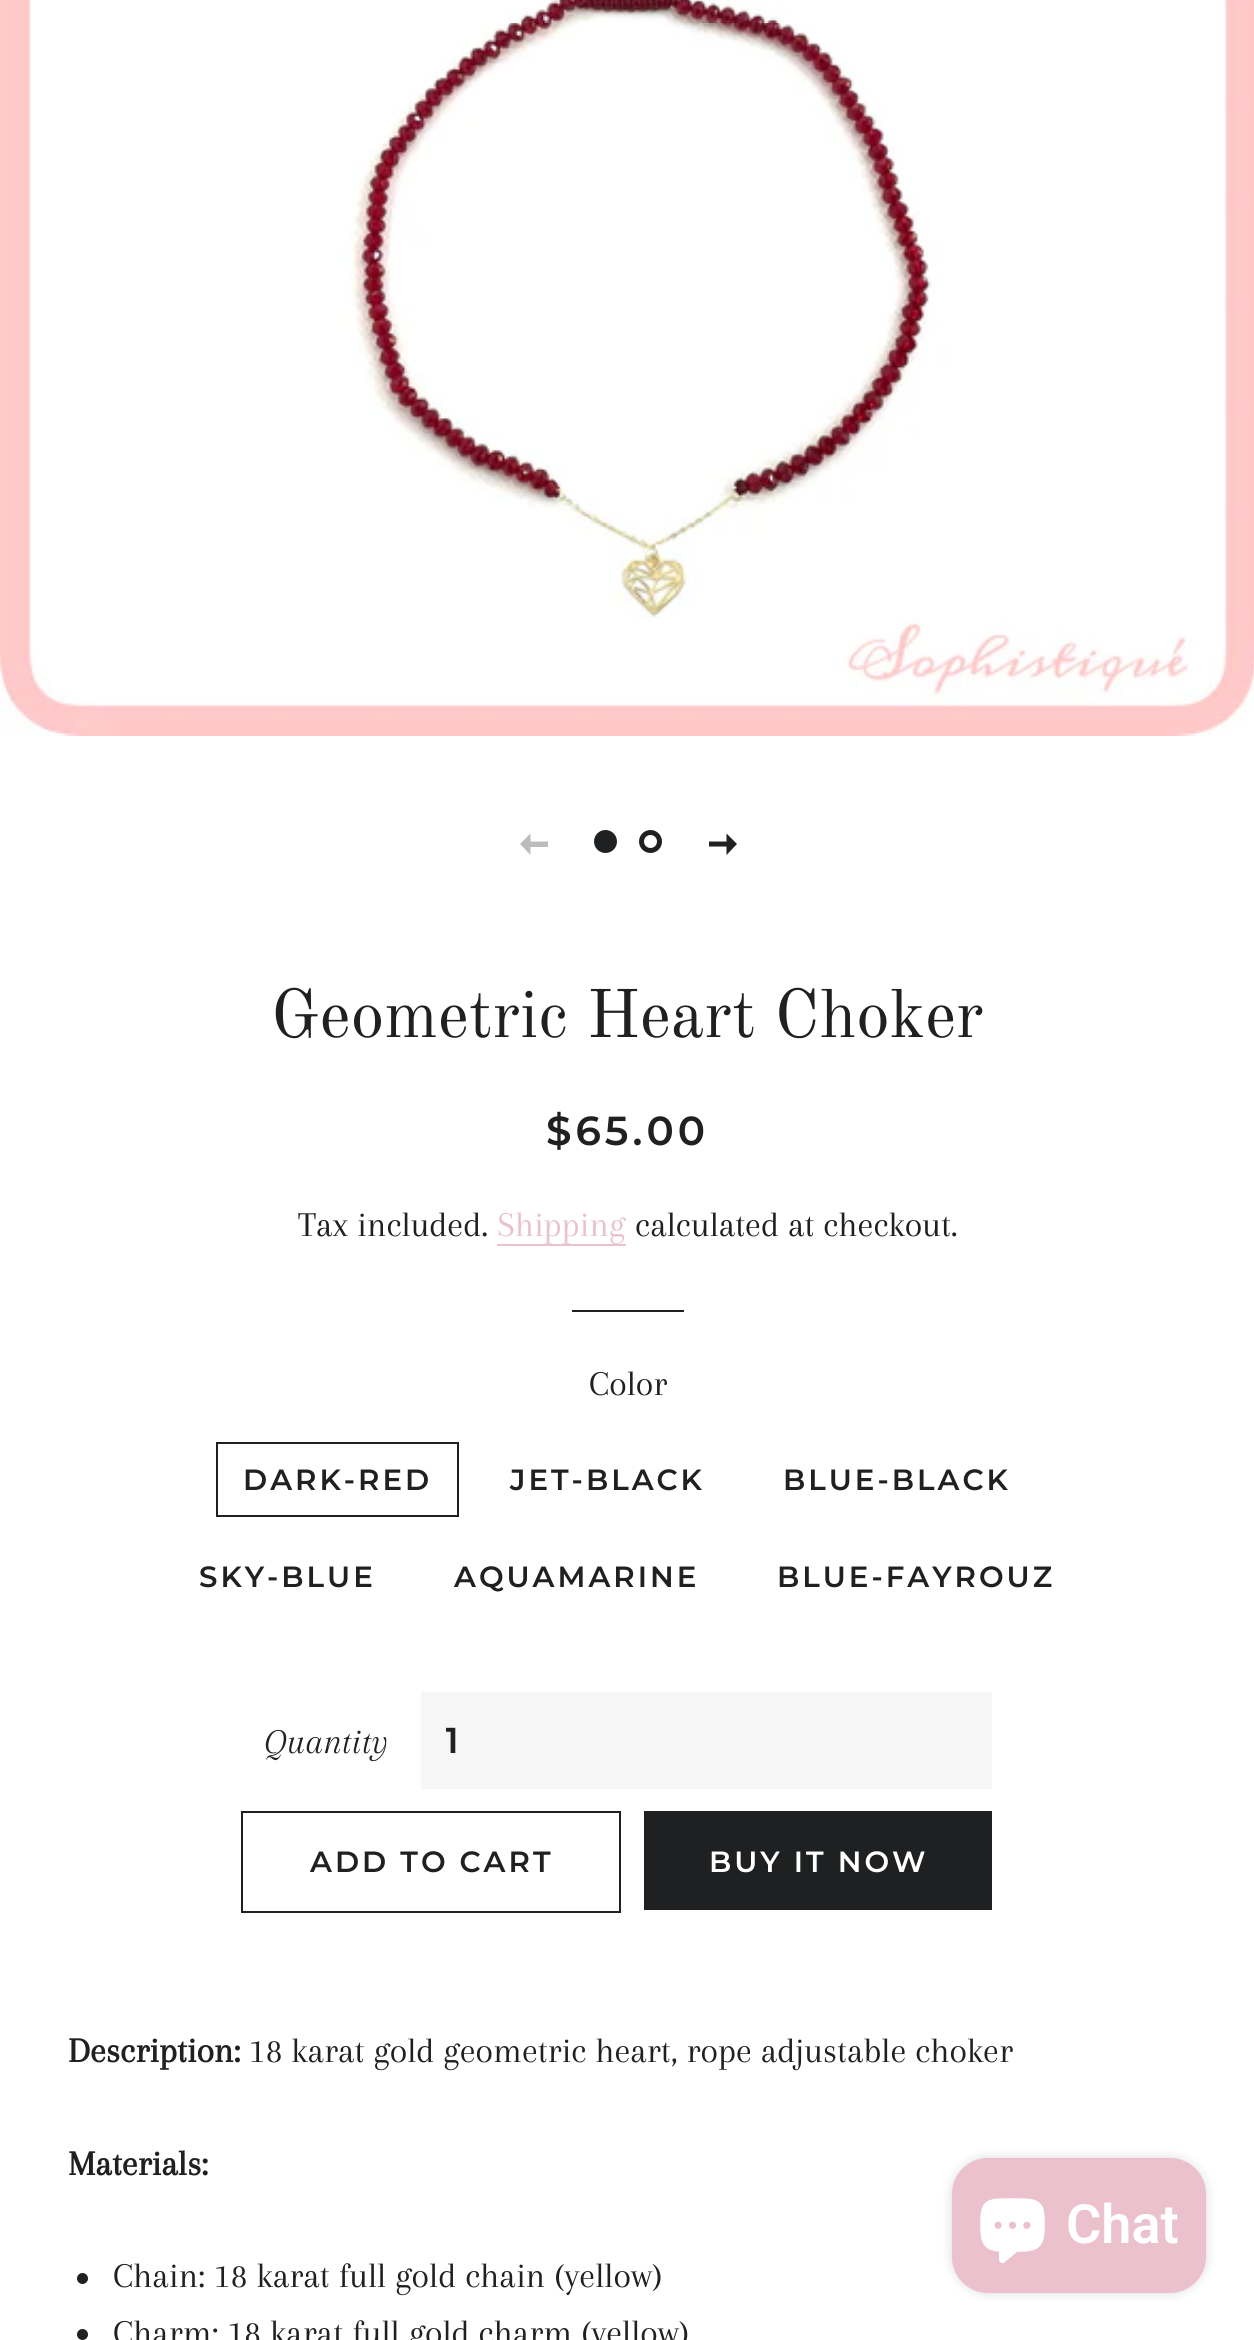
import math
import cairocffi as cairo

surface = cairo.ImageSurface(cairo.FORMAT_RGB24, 1254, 2340)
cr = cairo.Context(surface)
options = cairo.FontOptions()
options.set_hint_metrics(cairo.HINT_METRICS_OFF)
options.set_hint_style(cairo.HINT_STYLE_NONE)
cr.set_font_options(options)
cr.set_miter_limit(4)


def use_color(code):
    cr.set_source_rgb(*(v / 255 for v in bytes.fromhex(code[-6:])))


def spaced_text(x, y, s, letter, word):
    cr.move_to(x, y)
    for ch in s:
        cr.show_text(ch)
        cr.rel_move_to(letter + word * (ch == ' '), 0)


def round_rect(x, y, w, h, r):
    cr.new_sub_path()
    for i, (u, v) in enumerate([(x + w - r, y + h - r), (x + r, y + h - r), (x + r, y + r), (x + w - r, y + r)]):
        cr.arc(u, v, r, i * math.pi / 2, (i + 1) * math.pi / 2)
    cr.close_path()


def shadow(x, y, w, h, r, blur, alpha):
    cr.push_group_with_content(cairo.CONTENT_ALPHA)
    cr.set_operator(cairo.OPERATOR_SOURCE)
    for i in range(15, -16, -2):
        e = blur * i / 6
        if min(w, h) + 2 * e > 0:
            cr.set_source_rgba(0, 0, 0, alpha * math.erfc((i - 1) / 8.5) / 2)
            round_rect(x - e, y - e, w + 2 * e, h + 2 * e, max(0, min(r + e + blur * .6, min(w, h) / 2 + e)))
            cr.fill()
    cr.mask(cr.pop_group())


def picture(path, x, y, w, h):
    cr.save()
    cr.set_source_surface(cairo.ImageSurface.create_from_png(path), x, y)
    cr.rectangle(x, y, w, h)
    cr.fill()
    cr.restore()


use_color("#ffffff")
cr.paint()
picture("img1.png", 0, 0, 1254, 736)
use_color("#bcbcbc")
cr.new_path()
cr.move_to(520, 844)
cr.line_to(530.5, 855)
cr.line_to(530.5, 847)
cr.line_to(548, 847)
cr.line_to(548, 841.5)
cr.line_to(530.5, 841.5)
cr.line_to(530.5, 833.5)
cr.close_path()
cr.fill()
use_color("#1f2021")
cr.arc(605.5, 841.5, 9, 0, 2 * math.pi)
cr.fill_preserve()
cr.set_line_width(5)
cr.stroke()
cr.arc(650.5, 841.5, 9, 0, 2 * math.pi)
cr.stroke()
cr.new_path()
cr.move_to(737, 844)
cr.line_to(726.5, 833.5)
cr.line_to(726.5, 841.5)
cr.line_to(709, 841.5)
cr.line_to(709, 846.5)
cr.line_to(726.5, 846.5)
cr.line_to(726.5, 855)
cr.close_path()
cr.fill()
cr.select_font_face("Old Standard TT")
cr.set_font_size(67.5)
cr.move_to(271, 1037)
cr.show_text("Geometric Heart Choker")
cr.select_font_face("Montserrat SemiBold")
cr.set_font_size(40.5)
spaced_text(546, 1145, "$65.00", 4, 0)
cr.select_font_face("Arapey")
cr.set_font_size(36)
cr.move_to(298, 1236)
cr.show_text("Tax included.")
use_color("#eac1cc")
cr.rectangle(497, 1244, 129, 2)
cr.fill()
cr.move_to(497, 1236)
cr.show_text("Shipping")
use_color("#1f2021")
cr.move_to(635, 1236)
cr.show_text("calculated at checkout.")
cr.rectangle(572, 1310, 112, 2)
cr.fill()
cr.move_to(589, 1395)
cr.show_text("Color")
cr.rectangle(217, 1443, 241, 73)
cr.set_line_width(2)
cr.stroke()
cr.select_font_face("Montserrat SemiBold")
cr.set_font_size(29.25)
spaced_text(243, 1490, "DARK-RED", 3, 0)
spaced_text(510, 1490, "JET-BLACK", 3, 0)
spaced_text(783, 1490, "BLUE-BLACK", 3, 0)
spaced_text(199, 1587, "SKY-BLUE", 3, 0)
spaced_text(454, 1587, "AQUAMARINE", 3, 0)
spaced_text(777, 1587, "BLUE-FAYROUZ", 3, 0)
cr.select_font_face("Arapey", cairo.FONT_SLANT_ITALIC)
cr.set_font_size(36)
cr.move_to(264, 1753)
cr.show_text("Quantity")
use_color("#f6f6f6")
cr.rectangle(421, 1692, 571, 97)
cr.fill()
cr.save()
cr.rectangle(446, 1712, 488, 57)
cr.clip()
cr.select_font_face("Montserrat SemiBold")
use_color("#1f2021")
spaced_text(445, 1753, "1", 4, 0)
cr.restore()
cr.rectangle(242, 1812, 378, 100)
use_color("#1f2021")
cr.stroke()
cr.select_font_face("Montserrat SemiBold")
cr.set_font_size(29.25)
spaced_text(310, 1872, "ADD TO CART", 3, 0)
cr.rectangle(644, 1811, 348, 99)
cr.fill()
use_color("#ffffff")
spaced_text(709, 1872, "BUY IT NOW", 3, 0)
cr.select_font_face("Arapey", cairo.FONT_SLANT_NORMAL, cairo.FONT_WEIGHT_BOLD)
cr.set_font_size(36)
use_color("#1f2021")
cr.move_to(68, 2062)
cr.show_text("Description:")
cr.select_font_face("Arapey")
cr.move_to(249, 2062)
cr.show_text("18 karat gold geometric heart, rope adjustable choker")
cr.select_font_face("Arapey", cairo.FONT_SLANT_NORMAL, cairo.FONT_WEIGHT_BOLD)
cr.move_to(68, 2175)
cr.show_text("Materials:")
cr.new_path()
cr.arc(82.5, 2278.5, 5.5, 0, 2 * math.pi)
cr.fill()
cr.select_font_face("Arapey")
cr.move_to(113, 2287)
cr.show_text("Chain: 18 karat full gold chain (yellow)")
cr.new_path()
cr.arc(82.5, 2334.5, 5.5, 0, 2 * math.pi)
cr.fill()
cr.move_to(113, 2344)
cr.show_text("Charm: 18 karat full gold charm (yellow)")
use_color("#000000")
shadow(952, 2158, 254, 135, 36, 5.5, 0.15)
use_color("#eac1cc")
round_rect(952, 2158, 254, 135, 36)
cr.fill()
picture("img2.png", 980, 2198, 65, 65)
cr.select_font_face("Roboto SemiBold")
cr.set_font_size(54)
use_color("#ffffff")
cr.move_to(1066, 2243)
cr.show_text("Chat")
surface.write_to_png("result.png")
